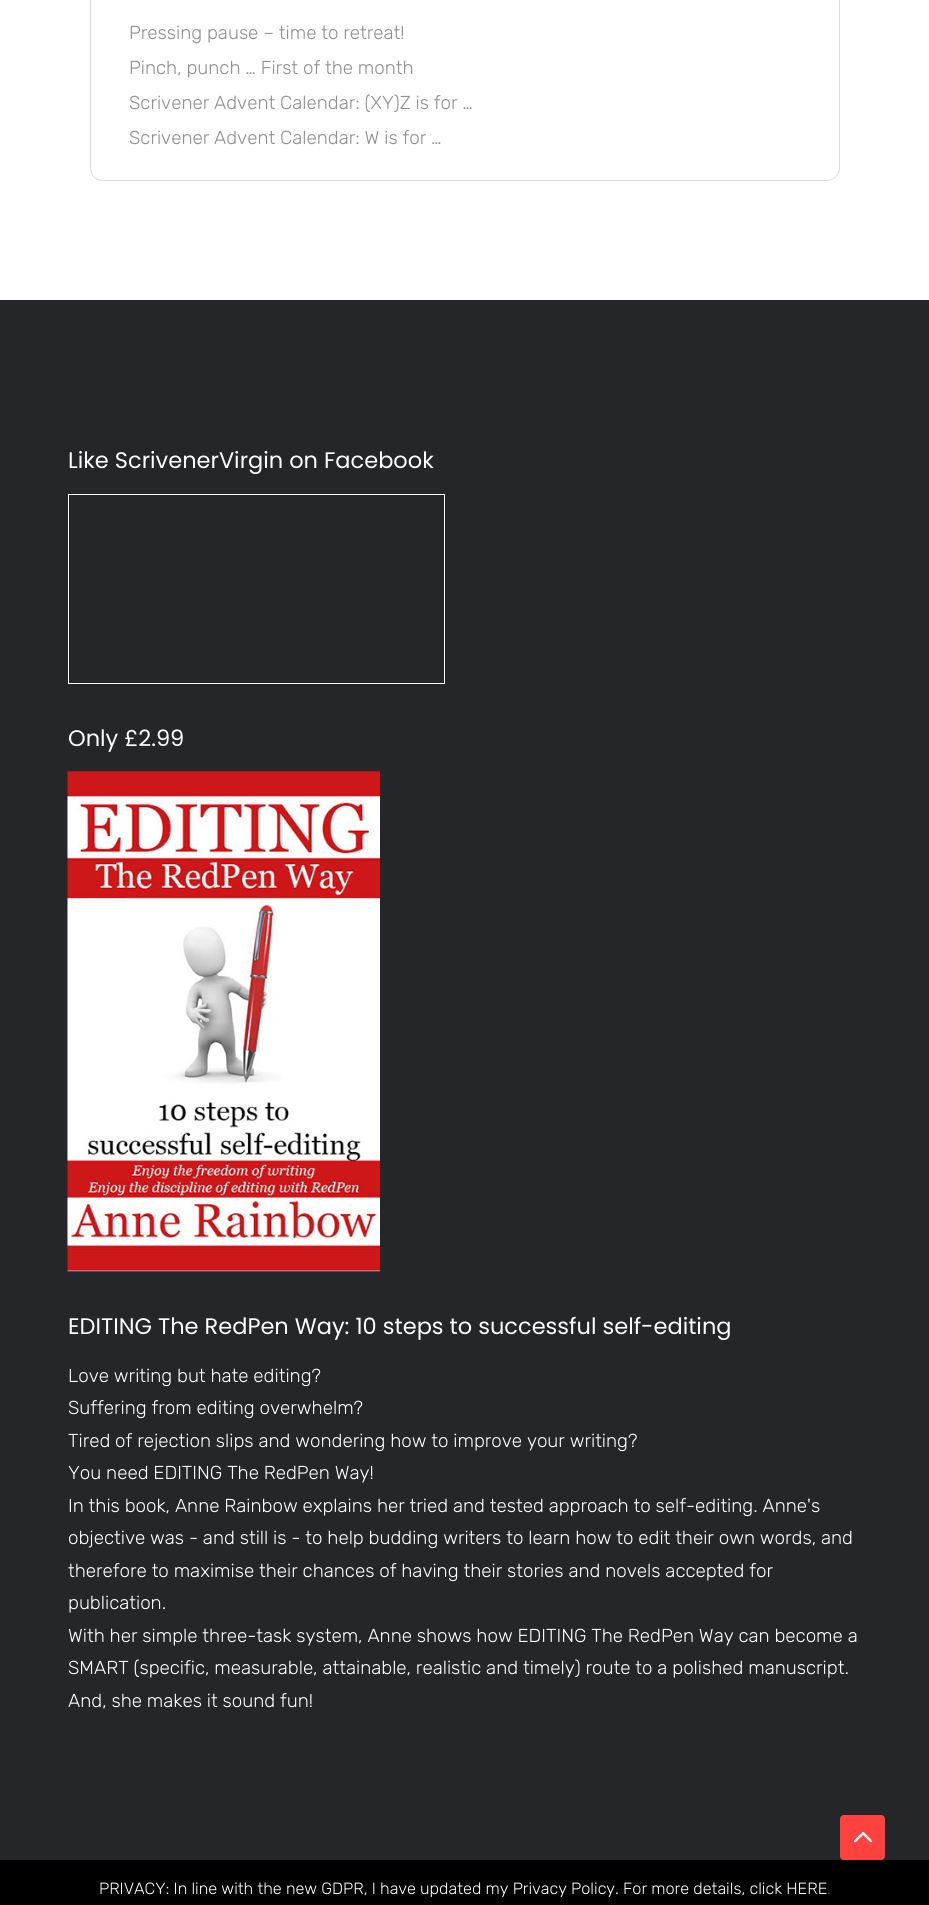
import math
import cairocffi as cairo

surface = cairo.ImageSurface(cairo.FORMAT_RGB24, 929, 1905)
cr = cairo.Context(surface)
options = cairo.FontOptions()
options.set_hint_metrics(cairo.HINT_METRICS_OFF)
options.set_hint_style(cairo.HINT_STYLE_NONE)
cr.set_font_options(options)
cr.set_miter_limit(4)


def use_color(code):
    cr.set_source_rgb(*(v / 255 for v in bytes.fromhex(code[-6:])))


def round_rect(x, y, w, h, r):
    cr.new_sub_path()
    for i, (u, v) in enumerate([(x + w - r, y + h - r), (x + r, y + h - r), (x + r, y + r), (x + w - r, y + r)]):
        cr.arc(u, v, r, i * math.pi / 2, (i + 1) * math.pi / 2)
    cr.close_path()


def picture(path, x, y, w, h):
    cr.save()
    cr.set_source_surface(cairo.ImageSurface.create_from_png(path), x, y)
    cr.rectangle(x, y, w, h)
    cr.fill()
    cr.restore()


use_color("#ffffff")
cr.paint()
round_rect(90.5, -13.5, 749, 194, 12.5)
use_color("#dddde8")
cr.set_line_width(1)
cr.stroke()
cr.select_font_face("Rubik Light")
cr.set_font_size(18.75)
use_color("#909090")
cr.move_to(129, 39)
cr.show_text("Pressing pause – time to retreat!")
cr.move_to(129, 74)
cr.show_text("Pinch, punch … First of the month")
cr.move_to(129, 109)
cr.show_text("Scrivener Advent Calendar: (XY)Z is for …")
cr.move_to(129, 144)
cr.show_text("Scrivener Advent Calendar: W is for …")
use_color("#24262a")
cr.rectangle(0, 300, 929, 1560)
cr.fill()
cr.select_font_face("Poppins")
cr.set_font_size(22.5)
use_color("#ffffff")
cr.move_to(68, 468)
cr.show_text("Like ScrivenerVirgin on Facebook")
cr.rectangle(68.5, 494.5, 376, 189)
cr.stroke()
cr.move_to(68, 746)
cr.show_text("Only £2.99")
picture("img1.png", 67, 771, 313, 501)
cr.move_to(68, 1334)
cr.show_text("EDITING The RedPen Way: 10 steps to successful self-editing")
cr.select_font_face("Rubik Light")
cr.set_font_size(18.75)
cr.move_to(68, 1382)
cr.show_text("Love writing but hate editing?")
cr.move_to(68, 1414)
cr.show_text("Suffering from editing overwhelm?")
cr.move_to(68, 1447)
cr.show_text("Tired of rejection slips and wondering how to improve your writing?")
cr.move_to(68, 1479)
cr.show_text("You need EDITING The RedPen Way!")
cr.move_to(68, 1512)
cr.show_text("In this book, Anne Rainbow explains her tried and tested approach to self-editing. Anne's")
cr.move_to(68, 1544)
cr.show_text("objective was - and still is - to help budding writers to learn how to edit their own words, and")
cr.move_to(68, 1577)
cr.show_text("therefore to maximise their chances of having their stories and novels accepted for")
cr.move_to(68, 1609)
cr.show_text("publication.")
cr.move_to(68, 1642)
cr.show_text("With her simple three-task system, Anne shows how EDITING The RedPen Way can become a")
cr.move_to(68, 1674)
cr.show_text("SMART (specific, measurable, attainable, realistic and timely) route to a polished manuscript.")
cr.move_to(68, 1707)
cr.show_text("And, she makes it sound fun!")
use_color("#000000")
cr.rectangle(0, 1860, 929, 45)
cr.fill()
cr.set_font_size(16.25)
use_color("#ffffff")
cr.move_to(99, 1894)
cr.show_text("PRIVACY: In line with the new GDPR, I have updated my Privacy Policy. For more details, click HERE")
use_color("#545454")
cr.move_to(827, 1894)
cr.show_text(".")
use_color("#fe423f")
round_rect(840, 1815, 45, 45, 4)
cr.fill()
picture("img2.png", 854, 1832, 19, 11)
surface.write_to_png("result.png")
